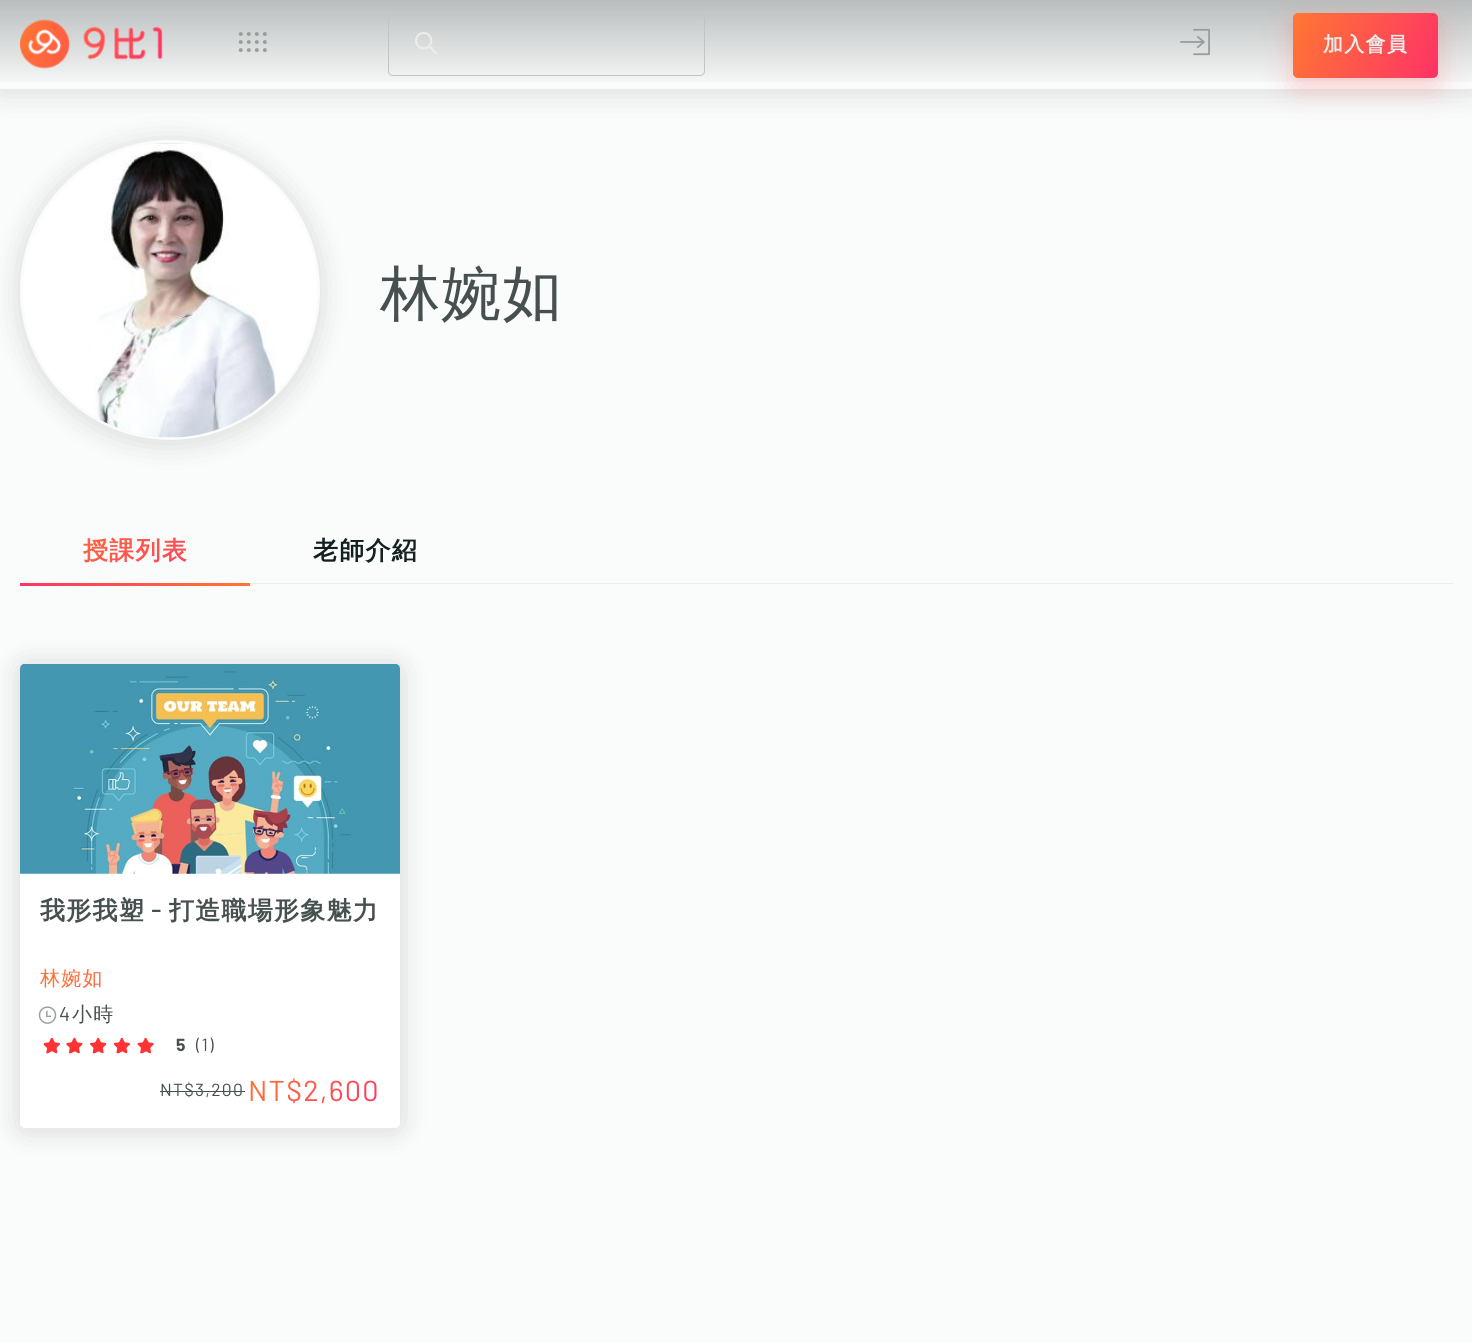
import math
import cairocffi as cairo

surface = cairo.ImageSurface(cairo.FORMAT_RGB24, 1472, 1343)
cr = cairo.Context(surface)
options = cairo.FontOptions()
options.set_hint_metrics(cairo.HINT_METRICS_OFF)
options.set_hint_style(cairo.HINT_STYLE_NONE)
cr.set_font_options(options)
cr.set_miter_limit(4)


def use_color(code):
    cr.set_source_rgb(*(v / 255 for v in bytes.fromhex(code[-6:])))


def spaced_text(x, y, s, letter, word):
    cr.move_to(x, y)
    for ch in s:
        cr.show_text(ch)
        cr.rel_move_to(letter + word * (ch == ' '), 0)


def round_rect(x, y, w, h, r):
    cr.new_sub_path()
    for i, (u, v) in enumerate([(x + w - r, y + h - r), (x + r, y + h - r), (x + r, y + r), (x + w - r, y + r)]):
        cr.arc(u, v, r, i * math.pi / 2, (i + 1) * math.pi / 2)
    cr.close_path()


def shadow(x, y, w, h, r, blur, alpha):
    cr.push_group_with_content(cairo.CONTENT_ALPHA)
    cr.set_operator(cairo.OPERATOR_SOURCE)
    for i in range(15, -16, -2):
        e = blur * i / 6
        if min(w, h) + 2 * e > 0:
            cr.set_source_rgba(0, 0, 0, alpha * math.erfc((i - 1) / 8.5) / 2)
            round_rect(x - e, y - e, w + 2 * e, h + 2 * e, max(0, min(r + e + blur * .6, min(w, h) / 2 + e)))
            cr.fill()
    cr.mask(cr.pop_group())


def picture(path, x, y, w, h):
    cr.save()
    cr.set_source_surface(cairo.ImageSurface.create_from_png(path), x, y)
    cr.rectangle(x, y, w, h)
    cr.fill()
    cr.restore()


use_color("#fafbfb")
cr.paint()
cr.save()
cr.set_fill_rule(cairo.FILL_RULE_EVEN_ODD)
cr.new_path()
cr.move_to(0, 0)
cr.line_to(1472, 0)
cr.line_to(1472, 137)
cr.line_to(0, 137)
cr.close_path()
cr.move_to(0, 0)
cr.line_to(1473, 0)
cr.line_to(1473, 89)
cr.line_to(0, 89)
cr.close_path()
cr.clip()
use_color("#142020")
shadow(0, 3, 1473, 88, 0, 15, 0.16)
cr.restore()
gradient = cairo.LinearGradient(736, 89, 736, 0)
gradient.add_color_stop_rgba(0, 0.078, 0.125, 0.125, 0)
gradient.add_color_stop_rgba(1, 0.078, 0.125, 0.125, 0.28)
cr.set_source(gradient)
cr.rectangle(0, 0, 1472, 82)
cr.fill()
picture("img1.png", 20, 19, 143, 50)
picture("img2.png", 238, 32, 29, 20)
round_rect(388.5, 14.5, 316, 61, 4.5)
use_color("#c2c5c5")
cr.set_line_width(1)
cr.stroke()
picture("img3.png", 415, 32, 22, 22)
picture("img4.png", 1180, 28, 30, 28)
use_color("#ff3333")
shadow(1293, 23, 145, 65, 5, 15, 0.24)
gradient = cairo.LinearGradient(1293, 11, 1437, 79)
gradient.add_color_stop_rgba(0, 1, 0.467, 0.2, 1)
gradient.add_color_stop_rgba(1, 1, 0.2, 0.4, 1)
cr.set_source(gradient)
round_rect(1293, 13, 145, 65, 5)
cr.fill()
cr.select_font_face("WenQuanYi Zen Hei", cairo.FONT_SLANT_NORMAL, cairo.FONT_WEIGHT_BOLD)
cr.set_font_size(20)
use_color("#ebecec")
spaced_text(1323, 51, "加入會員", 1.25, 0)
use_color("#142020")
shadow(20, 143, 300, 300, 150, 15, 0.16)
cr.arc(170, 290, 148.5, 0, 2 * math.pi)
use_color("#fafbfb")
cr.set_line_width(3)
cr.stroke()
picture("img5.png", 23, 144, 294, 294)
cr.select_font_face("WenQuanYi Zen Hei Medium")
cr.set_font_size(60)
use_color("#475050")
spaced_text(380, 314, "林婉如", 1.25, 0)
use_color("#ebecec")
cr.rectangle(250, 583, 1203, 1)
cr.fill()
cr.select_font_face("WenQuanYi Zen Hei", cairo.FONT_SLANT_NORMAL, cairo.FONT_WEIGHT_BOLD)
cr.set_font_size(25)
gradient = cairo.LinearGradient(72, 477, 198, 627)
gradient.add_color_stop_rgba(0, 1, 0.467, 0.2, 1)
gradient.add_color_stop_rgba(1, 1, 0.2, 0.4, 1)
cr.set_source(gradient)
spaced_text(83, 559, "授課列表", 1.25, 0)
gradient = cairo.LinearGradient(175, 639, 95, 528)
gradient.add_color_stop_rgba(0, 1, 0.467, 0.2, 1)
gradient.add_color_stop_rgba(1, 1, 0.2, 0.4, 1)
cr.set_source(gradient)
cr.rectangle(20, 583, 230, 3)
cr.fill()
use_color("#142020")
spaced_text(313, 559, "老師介紹", 1.25, 0)
use_color("#142020")
shadow(20, 666, 380, 464, 5, 15, 0.16)
use_color("#ffffff")
round_rect(20, 664, 380, 464, 5)
cr.fill()
picture("img6.png", 20, 664, 380, 210)
use_color("#475050")
spaced_text(40, 919, "我形我塑", 1.25, 0)
cr.select_font_face("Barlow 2", cairo.FONT_SLANT_NORMAL, cairo.FONT_WEIGHT_BOLD)
spaced_text(151, 919, "-", 1.25, 0)
cr.select_font_face("WenQuanYi Zen Hei", cairo.FONT_SLANT_NORMAL, cairo.FONT_WEIGHT_BOLD)
spaced_text(169, 919, "打造職場形象魅力", 1.25, 0)
cr.select_font_face("WenQuanYi Zen Hei Medium")
cr.set_font_size(20)
gradient = cairo.LinearGradient(133, 888, 287, 1071)
gradient.add_color_stop_rgba(0, 1, 0.467, 0.2, 1)
gradient.add_color_stop_rgba(1, 1, 0.2, 0.4, 1)
cr.set_source(gradient)
spaced_text(40, 985, "林婉如", 1.25, 0)
picture("img7.png", 38, 1006, 19, 18)
cr.select_font_face("Barlow")
use_color("#475050")
spaced_text(59, 1021, "4", 1.25, 0)
cr.select_font_face("WenQuanYi Zen Hei Medium")
spaced_text(72, 1021, "小時", 1.25, 0)
picture("img8.png", 43, 1037, 17, 17)
picture("img9.png", 43, 1039, 9, 15)
picture("img10.png", 66, 1037, 17, 17)
picture("img11.png", 70, 1051, 5, 3)
picture("img12.png", 90, 1037, 17, 17)
picture("img13.png", 91, 1045, 8, 9)
picture("img8.png", 113, 1037, 17, 17)
picture("img14.png", 115, 1045, 8, 9)
picture("img15.png", 137, 1037, 17, 17)
picture("img16.png", 141, 1051, 6, 3)
cr.select_font_face("Barlow", cairo.FONT_SLANT_NORMAL, cairo.FONT_WEIGHT_BOLD)
cr.set_font_size(17.5)
spaced_text(176, 1051, "5", 1.25, 0)
cr.select_font_face("Barlow")
spaced_text(196, 1051, "(1)", 1.25, 0)
spaced_text(160, 1096, "NT$3,200", 1.25, 0)
cr.rectangle(160, 1091, 85, 1)
cr.fill()
cr.set_font_size(28.75)
gradient = cairo.LinearGradient(280, 1052, 348, 1134)
gradient.add_color_stop_rgba(0, 1, 0.467, 0.2, 1)
gradient.add_color_stop_rgba(1, 1, 0.2, 0.4, 1)
cr.set_source(gradient)
spaced_text(248, 1101, "NT$2,600", 1.25, 0)
surface.write_to_png("result.png")
